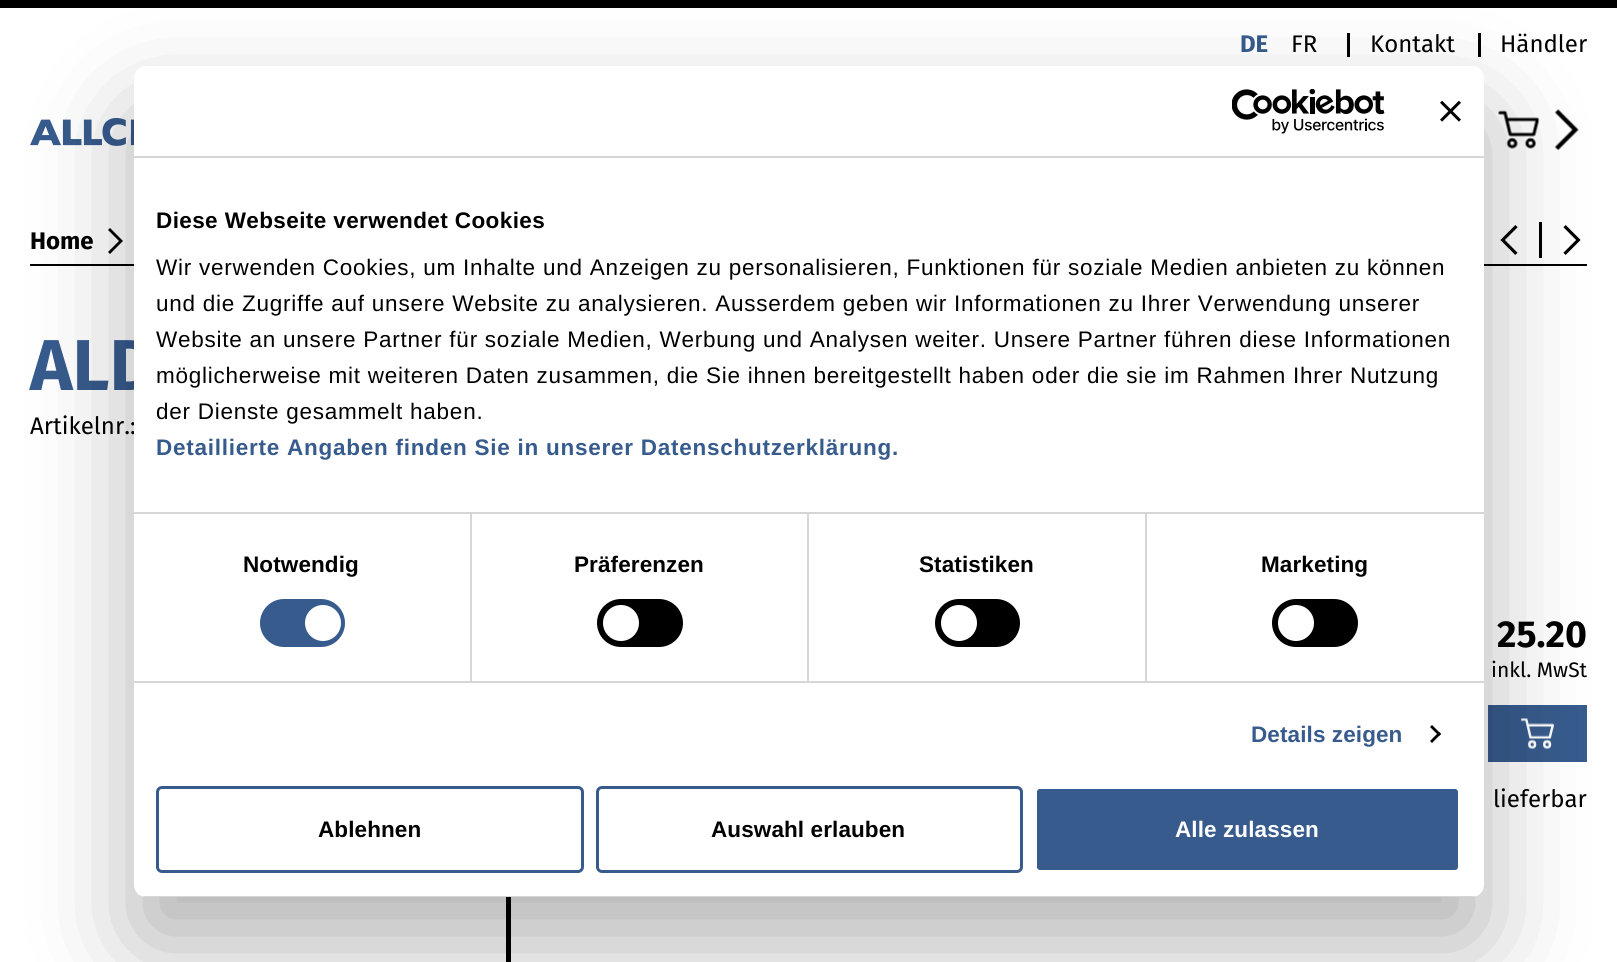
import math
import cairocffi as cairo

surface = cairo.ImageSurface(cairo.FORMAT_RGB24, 1617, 962)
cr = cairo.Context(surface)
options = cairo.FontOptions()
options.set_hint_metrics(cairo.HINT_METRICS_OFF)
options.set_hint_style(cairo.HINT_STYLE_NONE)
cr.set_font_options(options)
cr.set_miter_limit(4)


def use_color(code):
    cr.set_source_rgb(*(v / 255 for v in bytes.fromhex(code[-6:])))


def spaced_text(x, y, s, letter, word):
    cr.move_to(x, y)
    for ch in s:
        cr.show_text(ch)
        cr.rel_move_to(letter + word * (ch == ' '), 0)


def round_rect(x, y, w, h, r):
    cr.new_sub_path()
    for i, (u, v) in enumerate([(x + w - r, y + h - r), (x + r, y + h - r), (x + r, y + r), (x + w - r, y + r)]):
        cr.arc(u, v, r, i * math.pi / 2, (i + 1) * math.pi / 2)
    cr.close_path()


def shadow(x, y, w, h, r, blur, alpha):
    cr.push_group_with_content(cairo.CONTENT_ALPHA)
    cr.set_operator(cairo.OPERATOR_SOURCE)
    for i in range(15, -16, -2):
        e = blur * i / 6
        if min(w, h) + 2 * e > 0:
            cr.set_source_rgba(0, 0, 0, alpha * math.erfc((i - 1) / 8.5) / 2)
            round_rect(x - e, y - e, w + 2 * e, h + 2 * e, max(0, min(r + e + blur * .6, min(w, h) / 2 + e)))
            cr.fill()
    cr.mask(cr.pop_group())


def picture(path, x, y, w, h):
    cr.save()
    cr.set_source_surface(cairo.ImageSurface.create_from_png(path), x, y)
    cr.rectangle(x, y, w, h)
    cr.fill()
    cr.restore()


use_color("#ffffff")
cr.paint()
use_color("#000000")
cr.rectangle(0, 0, 1617, 8)
cr.fill()
cr.select_font_face("Fira Sans", cairo.FONT_SLANT_NORMAL, cairo.FONT_WEIGHT_BOLD)
cr.set_font_size(24)
use_color("#375b8d")
cr.move_to(1240, 52)
cr.show_text("DE")
cr.select_font_face("Fira Sans")
use_color("#000000")
cr.move_to(1291, 52)
cr.show_text("FR")
cr.rectangle(1347, 33, 3, 24)
cr.fill()
cr.move_to(1370, 52)
cr.show_text("Kontakt")
cr.rectangle(1478, 33, 3, 24)
cr.fill()
cr.move_to(1500, 52)
cr.show_text("Händler")
picture("img1.png", 30, 117, 104, 29)
picture("img2.png", 1498, 110, 42, 39)
picture("img3.png", 1554, 109, 25, 41)
cr.rectangle(30, 264, 1557, 2)
cr.fill()
cr.select_font_face("Fira Sans", cairo.FONT_SLANT_NORMAL, cairo.FONT_WEIGHT_BOLD)
cr.move_to(30, 249)
cr.show_text("Home")
cr.new_path()
cr.move_to(108, 252)
cr.line_to(119, 241)
cr.line_to(108, 230)
cr.line_to(110, 228)
cr.line_to(123, 241)
cr.line_to(110, 254)
cr.close_path()
cr.fill()
picture("img4.png", 1500, 225, 18, 30)
cr.rectangle(1539, 222, 3, 36)
cr.fill()
picture("img5.png", 1563, 225, 18, 30)
cr.set_font_size(72)
use_color("#375b8d")
cr.move_to(30, 390)
cr.show_text("ALD")
cr.select_font_face("Fira Sans")
cr.set_font_size(24)
use_color("#000000")
cr.move_to(30, 434)
cr.show_text("Artikelnr.:")
cr.select_font_face("Fira Sans", cairo.FONT_SLANT_NORMAL, cairo.FONT_WEIGHT_BOLD)
cr.set_font_size(37.5)
cr.move_to(1497, 647)
cr.show_text("25.20")
cr.select_font_face("Fira Sans")
cr.set_font_size(21)
cr.move_to(1491, 677)
cr.show_text("inkl. MwSt")
use_color("#375b8d")
cr.rectangle(1488, 705, 99, 57)
cr.fill()
picture("img6.png", 1521, 718, 33, 31)
cr.set_font_size(24)
use_color("#000000")
cr.move_to(1493, 807)
cr.show_text("lieferbar")
cr.rectangle(506, 897, 5, 65)
cr.fill()
use_color("#000000")
shadow(134, 114, 1350, 831, 12, 51, 0.3)
use_color("#ffffff")
round_rect(134, 66, 1350, 831, 12)
cr.fill()
use_color("#d6d6d6")
cr.rectangle(134, 156, 1350, 2)
cr.fill()
picture("img7.png", 1232, 89, 153, 45)
picture("img8.png", 1440, 101, 21, 21)
cr.rectangle(470, 513, 2, 168)
cr.fill()
cr.rectangle(807, 513, 2, 168)
cr.fill()
cr.rectangle(1145, 513, 2, 168)
cr.fill()
cr.rectangle(134, 512, 1350, 2)
cr.fill()
cr.select_font_face("Liberation Sans", cairo.FONT_SLANT_NORMAL, cairo.FONT_WEIGHT_BOLD)
cr.set_font_size(22.5)
use_color("#000000")
spaced_text(156, 228, "Diese Webseite verwendet Cookies", 0.4, 0)
cr.select_font_face("Liberation Sans")
spaced_text(156, 275, "Wir verwenden Cookies, um Inhalte und Anzeigen zu personalisieren, Funktionen für soziale Medien anbieten zu können", 0.75, 0)
spaced_text(156, 311, "und die Zugriffe auf unsere Website zu analysieren. Ausserdem geben wir Informationen zu Ihrer Verwendung unserer", 0.75, 0)
spaced_text(156, 347, "Website an unsere Partner für soziale Medien, Werbung und Analysen weiter. Unsere Partner führen diese Informationen", 0.75, 0)
spaced_text(156, 383, "möglicherweise mit weiteren Daten zusammen, die Sie ihnen bereitgestellt haben oder die sie im Rahmen Ihrer Nutzung", 0.75, 0)
spaced_text(156, 419, "der Dienste gesammelt haben.", 0.75, 0)
cr.select_font_face("Liberation Sans", cairo.FONT_SLANT_NORMAL, cairo.FONT_WEIGHT_BOLD)
use_color("#375b8d")
spaced_text(156, 455, "Detaillierte Angaben finden Sie in unserer Datenschutzerklärung.", 0.75, 0)
use_color("#d6d6d6")
cr.rectangle(134, 681, 1350, 2)
cr.fill()
use_color("#000000")
spaced_text(243, 572, "Notwendig", 0.1, 0)
use_color("#375b8d")
round_rect(260, 599, 85, 48, 24)
cr.fill()
use_color("#ffffff")
cr.arc(323, 623, 18, 0, 2 * math.pi)
cr.fill()
use_color("#000000")
spaced_text(574, 572, "Präferenzen", 0.1, 0)
round_rect(597, 599, 86, 48, 24)
cr.fill()
use_color("#ffffff")
cr.arc(621, 623, 18, 0, 2 * math.pi)
cr.fill()
use_color("#000000")
spaced_text(919, 572, "Statistiken", 0.1, 0)
round_rect(935, 599, 85, 48, 24)
cr.fill()
use_color("#ffffff")
cr.arc(959, 623, 18, 0, 2 * math.pi)
cr.fill()
use_color("#000000")
spaced_text(1261, 572, "Marketing", 0.1, 0)
round_rect(1272, 599, 86, 48, 24)
cr.fill()
use_color("#ffffff")
cr.arc(1296, 623, 18, 0, 2 * math.pi)
cr.fill()
use_color("#375b8d")
spaced_text(1251, 742, "Details zeigen", 0.1, 0)
use_color("#000000")
cr.new_path()
cr.move_to(1432, 725)
cr.line_to(1441, 734)
cr.line_to(1439, 736)
cr.line_to(1430, 727)
cr.close_path()
cr.fill()
cr.new_path()
cr.move_to(1439, 732)
cr.line_to(1441, 734)
cr.line_to(1432, 743)
cr.line_to(1430, 741)
cr.close_path()
cr.fill()
cr.save()
round_rect(134, 66, 1350, 831, 12)
cr.clip()
use_color("#d6d6d6")
cr.rectangle(134, 896, 1350, 1)
cr.fill()
cr.restore()
round_rect(157.5, 787.5, 425, 84, 4.5)
use_color("#375b8d")
cr.set_line_width(3)
cr.stroke()
use_color("#000000")
spaced_text(318, 837, "Ablehnen", 0.1, 0)
round_rect(597.5, 787.5, 424, 84, 4.5)
use_color("#375b8d")
cr.stroke()
use_color("#000000")
spaced_text(711, 837, "Auswahl erlauben", 0.1, 0)
use_color("#375b8d")
round_rect(1035.5, 787.5, 424, 84, 4.5)
cr.fill_preserve()
use_color("#ffffff")
cr.stroke()
spaced_text(1175, 837, "Alle zulassen", 0.1, 0)
surface.write_to_png("result.png")
